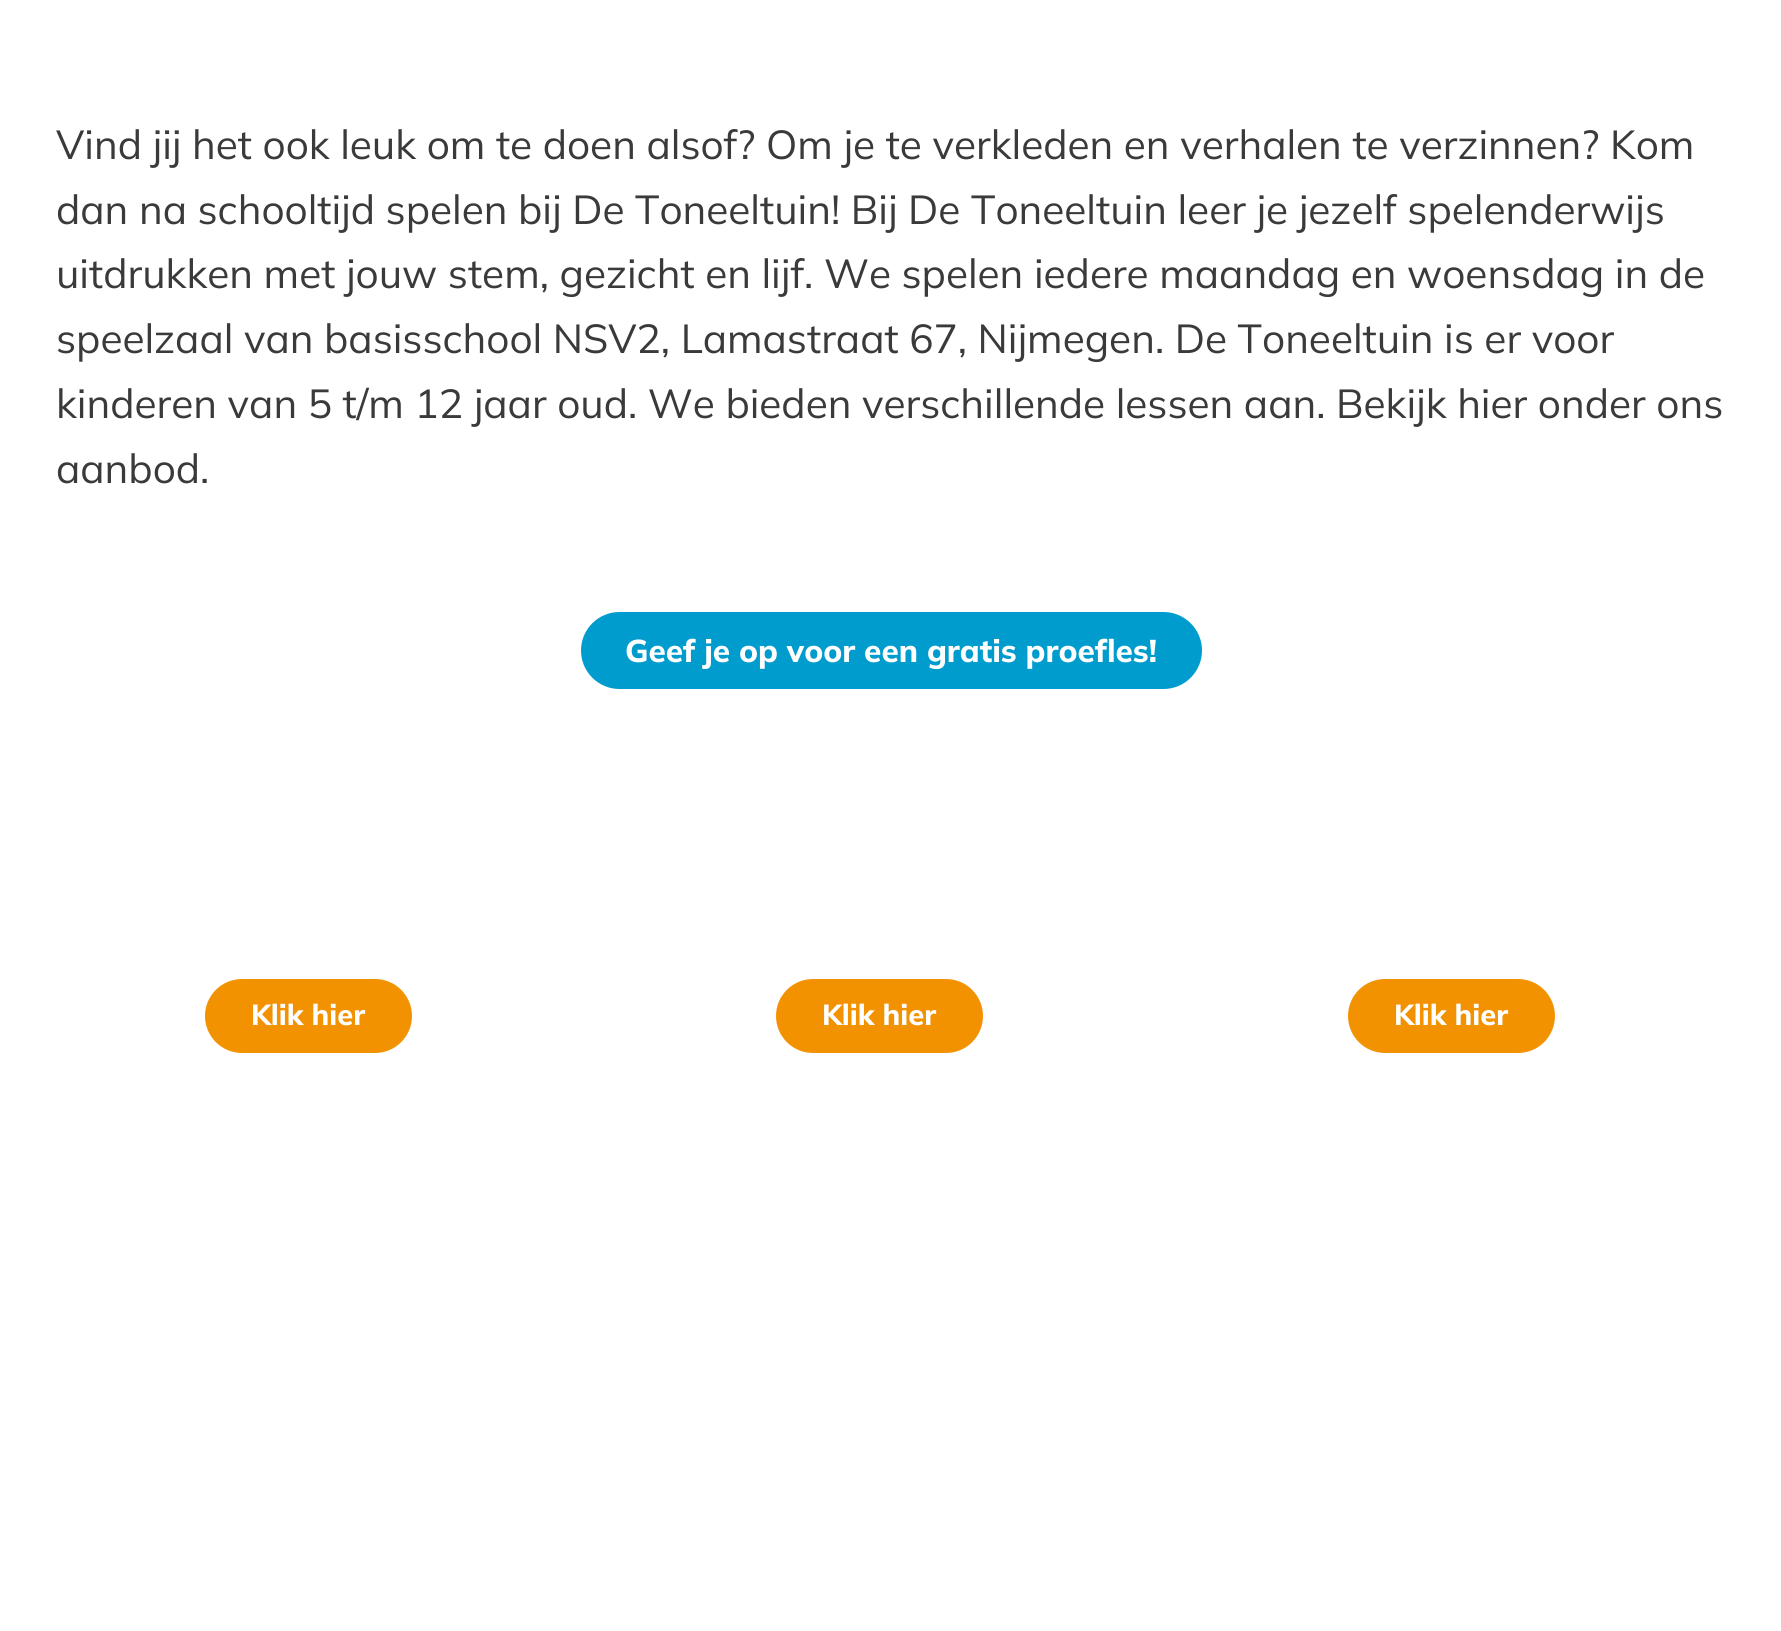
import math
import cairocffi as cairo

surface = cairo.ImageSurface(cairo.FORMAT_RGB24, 1781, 1631)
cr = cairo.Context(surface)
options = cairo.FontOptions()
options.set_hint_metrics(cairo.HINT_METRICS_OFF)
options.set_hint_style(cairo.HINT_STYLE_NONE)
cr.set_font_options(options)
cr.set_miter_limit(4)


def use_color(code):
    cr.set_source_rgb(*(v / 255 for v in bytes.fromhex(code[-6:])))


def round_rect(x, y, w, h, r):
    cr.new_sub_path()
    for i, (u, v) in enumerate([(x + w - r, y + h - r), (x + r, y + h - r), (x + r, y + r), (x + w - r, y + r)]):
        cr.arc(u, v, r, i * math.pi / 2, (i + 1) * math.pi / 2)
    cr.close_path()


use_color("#ffffff")
cr.paint()
cr.select_font_face("Mulish")
cr.set_font_size(40.5)
use_color("#3a3a3a")
cr.move_to(56, 159)
cr.show_text("Vind jij het ook leuk om te doen alsof? Om je te verkleden en verhalen te verzinnen? Kom")
cr.move_to(56, 224)
cr.show_text("dan na schooltijd spelen bij De Toneeltuin! Bij De Toneeltuin leer je jezelf spelenderwijs")
cr.move_to(56, 288)
cr.show_text("uitdrukken met jouw stem, gezicht en lijf. We spelen iedere maandag en woensdag in de")
cr.move_to(56, 353)
cr.show_text("speelzaal van basisschool NSV2, Lamastraat 67, Nijmegen. De Toneeltuin is er voor")
cr.move_to(56, 418)
cr.show_text("kinderen van 5 t/m 12 jaar oud. We bieden verschillende lessen aan. Bekijk hier onder ons")
cr.move_to(56, 483)
cr.show_text("aanbod.")
use_color("#009cce")
round_rect(581, 612, 621, 77, 38.5)
cr.fill()
cr.select_font_face("Mulish ExtraBold")
cr.set_font_size(31.5)
use_color("#ffffff")
cr.move_to(625, 662)
cr.show_text("Geef je op voor een gratis proefles!")
use_color("#f39200")
round_rect(205, 979, 207, 74, 37)
cr.fill()
cr.set_font_size(29)
use_color("#ffffff")
cr.move_to(251, 1025)
cr.show_text("Klik hier")
use_color("#f39200")
round_rect(776, 979, 207, 74, 37)
cr.fill()
use_color("#ffffff")
cr.move_to(822, 1025)
cr.show_text("Klik hier")
use_color("#f39200")
round_rect(1348, 979, 207, 74, 37)
cr.fill()
use_color("#ffffff")
cr.move_to(1394, 1025)
cr.show_text("Klik hier")
surface.write_to_png("result.png")
